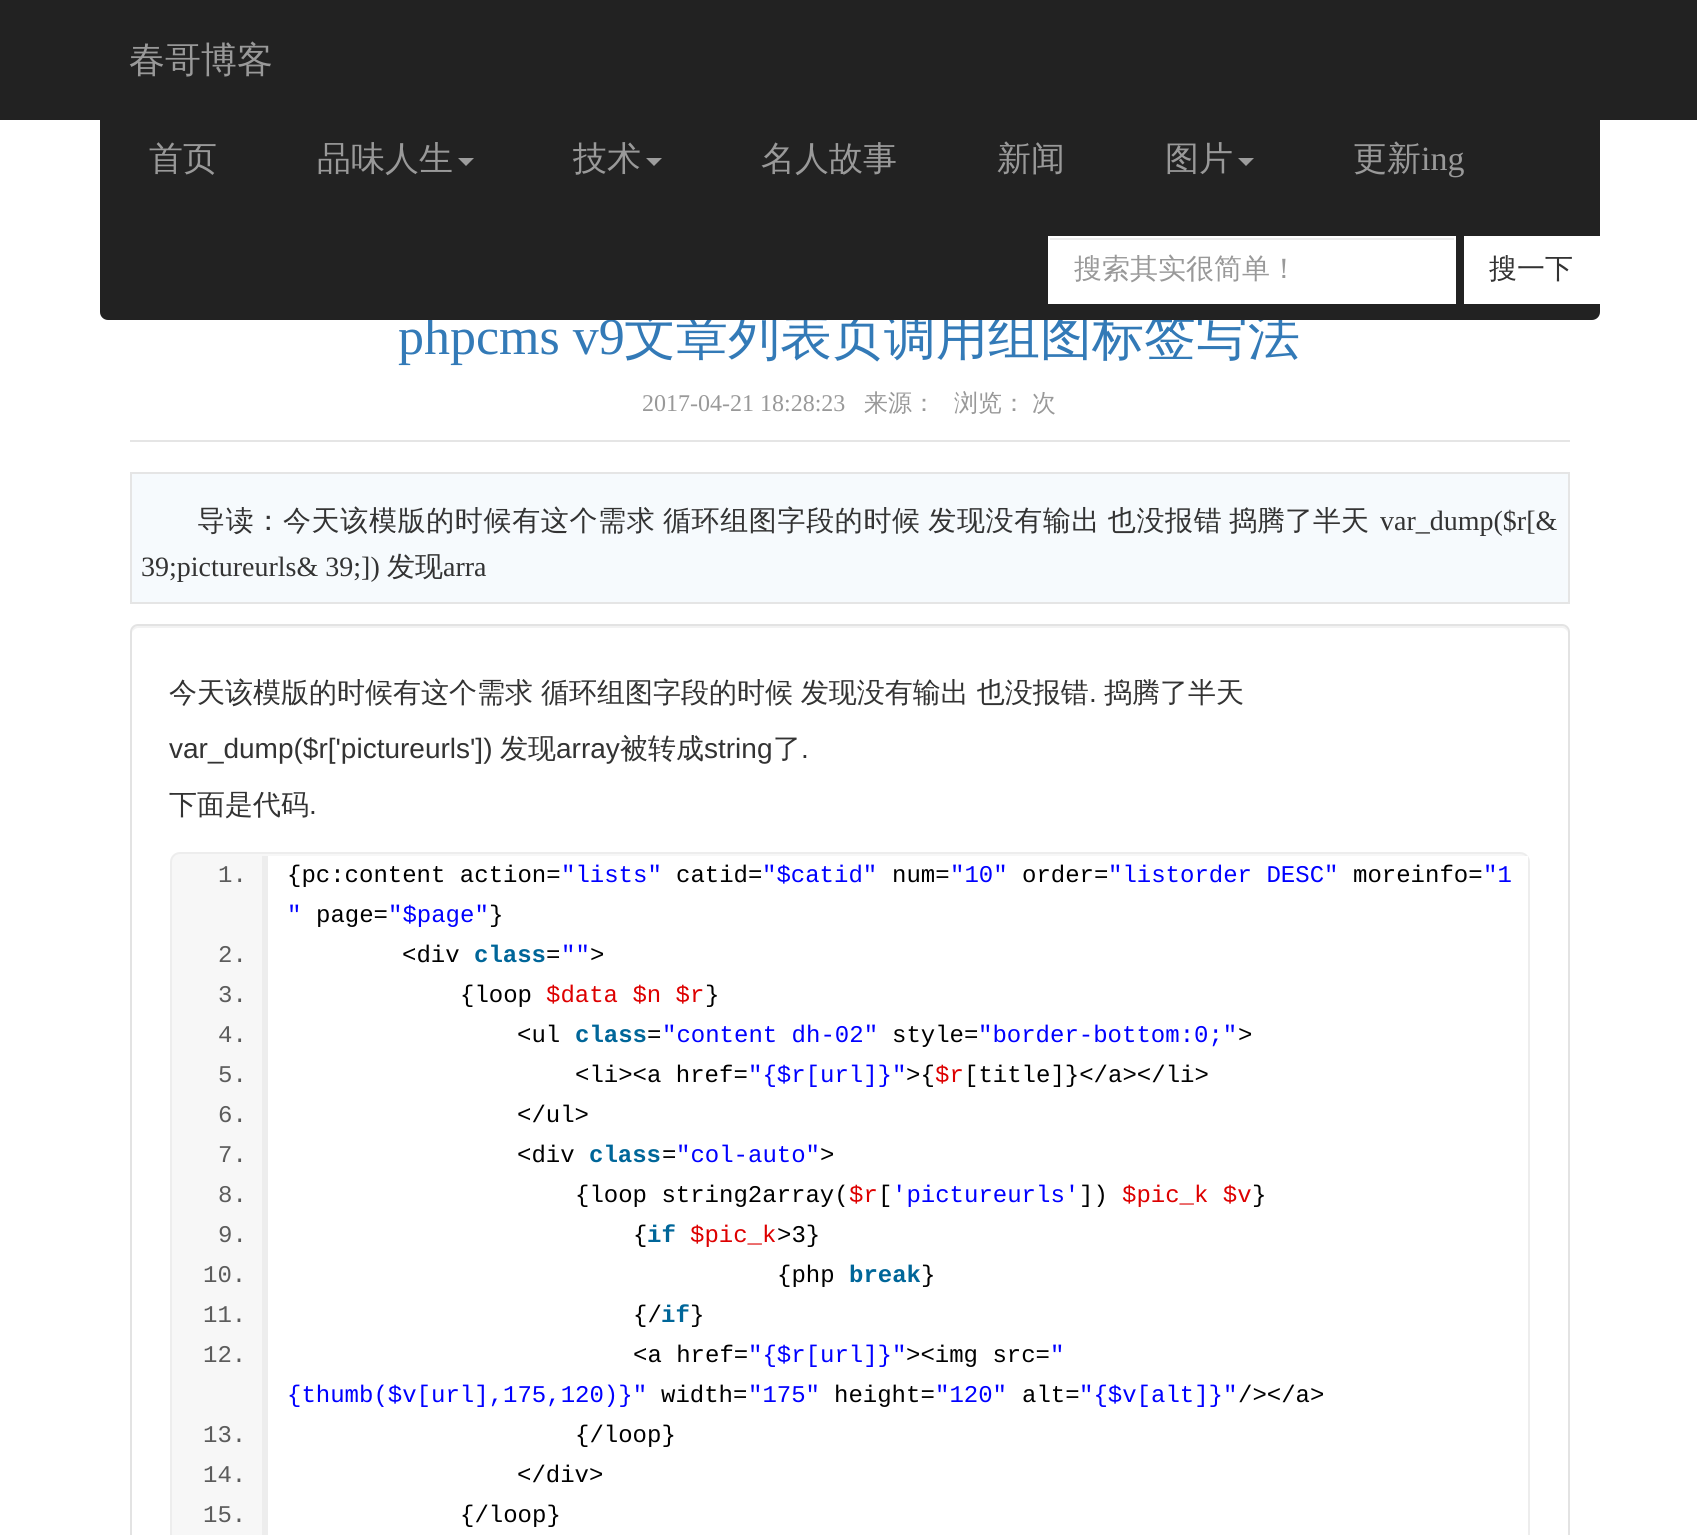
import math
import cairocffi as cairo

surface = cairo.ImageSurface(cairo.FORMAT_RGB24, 1697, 1535)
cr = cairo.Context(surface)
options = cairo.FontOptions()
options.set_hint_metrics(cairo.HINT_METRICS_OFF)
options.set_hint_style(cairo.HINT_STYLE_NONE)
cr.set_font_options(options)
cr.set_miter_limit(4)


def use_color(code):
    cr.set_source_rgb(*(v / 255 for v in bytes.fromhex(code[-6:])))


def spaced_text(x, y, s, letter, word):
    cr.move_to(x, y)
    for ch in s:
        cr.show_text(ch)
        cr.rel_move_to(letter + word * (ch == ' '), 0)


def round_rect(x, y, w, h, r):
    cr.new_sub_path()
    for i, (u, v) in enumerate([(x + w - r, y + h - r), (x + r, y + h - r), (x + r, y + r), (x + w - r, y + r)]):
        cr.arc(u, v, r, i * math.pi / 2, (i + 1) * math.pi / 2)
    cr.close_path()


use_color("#ffffff")
cr.paint()
use_color("#222222")
cr.rectangle(0, 0, 1697, 120)
cr.fill()
cr.select_font_face("Liberation Serif")
cr.set_font_size(52)
use_color("#337ab7")
cr.move_to(398, 354)
cr.show_text("phpcms v9")
cr.select_font_face("WenQuanYi Zen Hei Medium")
cr.move_to(624, 354)
cr.show_text("文章列表页调用组图标签写法")
use_color("#222222")
round_rect(100, 0, 1500, 320, 8)
cr.fill()
cr.set_font_size(36)
use_color("#999999")
cr.move_to(129, 72)
cr.show_text("春哥博客")
cr.set_font_size(34)
cr.move_to(149, 170)
cr.show_text("首页")
cr.move_to(317, 170)
cr.show_text("品味人生")
use_color("#9d9d9d")
cr.new_path()
cr.move_to(458, 158)
cr.line_to(474, 158)
cr.line_to(466, 166)
cr.close_path()
cr.fill()
use_color("#999999")
cr.move_to(573, 170)
cr.show_text("技术")
use_color("#9d9d9d")
cr.new_path()
cr.move_to(646, 158)
cr.line_to(662, 158)
cr.line_to(654, 166)
cr.close_path()
cr.fill()
use_color("#999999")
cr.move_to(761, 170)
cr.show_text("名人故事")
cr.move_to(997, 170)
cr.show_text("新闻")
cr.move_to(1165, 170)
cr.show_text("图片")
use_color("#9d9d9d")
cr.new_path()
cr.move_to(1238, 158)
cr.line_to(1254, 158)
cr.line_to(1246, 166)
cr.close_path()
cr.fill()
use_color("#999999")
cr.move_to(1353, 170)
cr.show_text("更新")
cr.select_font_face("Liberation Serif")
cr.move_to(1421, 170)
cr.show_text("ing")
use_color("#ffffff")
cr.rectangle(1048, 236, 408, 68)
cr.fill()
use_color("#ececec")
cr.rectangle(1050, 238, 404, 2)
cr.fill()
cr.select_font_face("WenQuanYi Zen Hei Medium")
cr.set_font_size(28)
use_color("#999999")
cr.move_to(1074, 278)
cr.show_text("搜索其实很简单！")
use_color("#ffffff")
cr.rectangle(1464, 236, 136, 68)
cr.fill()
use_color("#333333")
cr.move_to(1489, 278)
cr.show_text("搜一下")
use_color("#e5e5e5")
cr.rectangle(130, 440, 1440, 2)
cr.fill()
cr.select_font_face("Liberation Serif")
cr.set_font_size(24)
use_color("#999999")
cr.move_to(642, 411)
cr.show_text("2017-04-21 18:28:23")
cr.select_font_face("WenQuanYi Zen Hei Medium")
cr.move_to(864, 411)
cr.show_text("来源：")
cr.move_to(954, 411)
cr.show_text("浏览：")
cr.move_to(1032, 411)
cr.show_text("次")
use_color("#f6fafd")
cr.rectangle(131, 473, 1438, 130)
cr.fill_preserve()
use_color("#e5e5e5")
cr.stroke()
cr.set_font_size(28)
use_color("#333333")
spaced_text(197, 530, "导读：今天该模版的时候有这个需求 循环组图字段的时候 发现没有输出 也没报错", 0.65, -1.5)
cr.move_to(1229, 530)
cr.show_text("捣腾了半天")
cr.select_font_face("Liberation Serif")
cr.move_to(1380, 530)
cr.show_text("var_dump($r[&")
cr.move_to(141, 576)
cr.show_text("39;pictureurls& 39;])")
cr.select_font_face("WenQuanYi Zen Hei Medium")
cr.move_to(387, 576)
cr.show_text("发现")
cr.select_font_face("Liberation Serif")
cr.move_to(443, 576)
cr.show_text("arra")
use_color("#f2f2f2")
cr.new_path()
cr.move_to(138, 628)
cr.line_to(1562, 628)
cr.curve_to(1565, 628, 1568, 631, 1568, 634)
cr.curve_to(1568, 630, 1567, 626, 1562, 626)
cr.line_to(138, 626)
cr.curve_to(133, 626, 132, 630, 132, 634)
cr.curve_to(132, 631, 135, 628, 138, 628)
cr.close_path()
cr.fill()
round_rect(131, 625, 1438, 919, 7)
use_color("#e3e3e3")
cr.stroke()
cr.select_font_face("WenQuanYi Zen Hei Medium")
use_color("#333333")
spaced_text(169, 702, "今天该模版的时候有这个需求 循环组图字段的时候 发现没有输出 也没报错", 0, -0.5)
cr.select_font_face("Liberation Sans")
cr.move_to(1089, 702)
cr.show_text(".")
cr.select_font_face("WenQuanYi Zen Hei Medium")
cr.move_to(1104, 702)
cr.show_text("捣腾了半天")
cr.select_font_face("Liberation Sans")
cr.move_to(169, 758)
cr.show_text("var_dump($r['pictureurls'])")
cr.select_font_face("WenQuanYi Zen Hei Medium")
cr.move_to(500, 758)
cr.show_text("发现")
cr.select_font_face("Liberation Sans")
cr.move_to(556, 758)
cr.show_text("array")
cr.select_font_face("WenQuanYi Zen Hei Medium")
cr.move_to(620, 758)
cr.show_text("被转成")
cr.select_font_face("Liberation Sans")
cr.move_to(704, 758)
cr.show_text("string")
cr.select_font_face("WenQuanYi Zen Hei Medium")
cr.move_to(773, 758)
cr.show_text("了")
cr.select_font_face("Liberation Sans")
cr.move_to(801, 758)
cr.show_text(".")
cr.select_font_face("WenQuanYi Zen Hei Medium")
cr.move_to(169, 814)
cr.show_text("下面是代码")
cr.select_font_face("Liberation Sans")
cr.move_to(309, 814)
cr.show_text(".")
use_color("#f7f7f7")
round_rect(171, 853, 1358, 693, 9)
cr.fill_preserve()
use_color("#ededed")
cr.stroke()
use_color("#ffffff")
cr.rectangle(268, 856, 1260, 679)
cr.fill()
use_color("#ededed")
cr.rectangle(262, 856, 6, 679)
cr.fill()
cr.select_font_face("Liberation Mono")
cr.set_font_size(24)
use_color("#5c5c5c")
cr.move_to(218, 882)
cr.show_text("1.")
use_color("#000000")
cr.move_to(287, 882)
cr.show_text("{pc:content action=")
use_color("#0000ff")
cr.move_to(561, 882)
cr.show_text("\"lists\"")
use_color("#000000")
cr.move_to(676, 882)
cr.show_text("catid=")
use_color("#0000ff")
cr.move_to(762, 882)
cr.show_text("\"$catid\"")
use_color("#000000")
cr.move_to(892, 882)
cr.show_text("num=")
use_color("#0000ff")
cr.move_to(950, 882)
cr.show_text("\"10\"")
use_color("#000000")
cr.move_to(1022, 882)
cr.show_text("order=")
use_color("#0000ff")
cr.move_to(1108, 882)
cr.show_text("\"listorder DESC\"")
use_color("#000000")
cr.move_to(1353, 882)
cr.show_text("moreinfo=")
use_color("#0000ff")
cr.move_to(1483, 882)
cr.show_text("\"1")
cr.move_to(287, 922)
cr.show_text("\"")
use_color("#000000")
cr.move_to(316, 922)
cr.show_text("page=")
use_color("#0000ff")
cr.move_to(388, 922)
cr.show_text("\"$page\"")
use_color("#000000")
cr.move_to(489, 922)
cr.show_text("}")
use_color("#5c5c5c")
cr.move_to(218, 962)
cr.show_text("2.")
use_color("#000000")
cr.move_to(402, 962)
cr.show_text("<div")
cr.select_font_face("Liberation Mono", cairo.FONT_SLANT_NORMAL, cairo.FONT_WEIGHT_BOLD)
use_color("#006699")
cr.move_to(474, 962)
cr.show_text("class")
cr.select_font_face("Liberation Mono")
use_color("#000000")
cr.move_to(546, 962)
cr.show_text("=")
use_color("#0000ff")
cr.move_to(561, 962)
cr.show_text("\"\"")
use_color("#000000")
cr.move_to(590, 962)
cr.show_text(">")
use_color("#5c5c5c")
cr.move_to(218, 1002)
cr.show_text("3.")
use_color("#000000")
cr.move_to(460, 1002)
cr.show_text("{loop")
use_color("#dd0000")
cr.move_to(546, 1002)
cr.show_text("$data $n $r")
use_color("#000000")
cr.move_to(705, 1002)
cr.show_text("}")
use_color("#5c5c5c")
cr.move_to(218, 1042)
cr.show_text("4.")
use_color("#000000")
cr.move_to(517, 1042)
cr.show_text("<ul")
cr.select_font_face("Liberation Mono", cairo.FONT_SLANT_NORMAL, cairo.FONT_WEIGHT_BOLD)
use_color("#006699")
cr.move_to(575, 1042)
cr.show_text("class")
cr.select_font_face("Liberation Mono")
use_color("#000000")
cr.move_to(647, 1042)
cr.show_text("=")
use_color("#0000ff")
cr.move_to(662, 1042)
cr.show_text("\"content dh-02\"")
use_color("#000000")
cr.move_to(892, 1042)
cr.show_text("style=")
use_color("#0000ff")
cr.move_to(978, 1042)
cr.show_text("\"border-bottom:0;\"")
use_color("#000000")
cr.move_to(1238, 1042)
cr.show_text(">")
use_color("#5c5c5c")
cr.move_to(218, 1082)
cr.show_text("5.")
use_color("#000000")
cr.move_to(575, 1082)
cr.show_text("<li><a href=")
use_color("#0000ff")
cr.move_to(748, 1082)
cr.show_text("\"{$r[url]}\"")
use_color("#000000")
cr.move_to(906, 1082)
cr.show_text(">{")
use_color("#dd0000")
cr.move_to(935, 1082)
cr.show_text("$r")
use_color("#000000")
cr.move_to(964, 1082)
cr.show_text("[title]}</a></li>")
use_color("#5c5c5c")
cr.move_to(218, 1122)
cr.show_text("6.")
use_color("#000000")
cr.move_to(517, 1122)
cr.show_text("</ul>")
use_color("#5c5c5c")
cr.move_to(218, 1162)
cr.show_text("7.")
use_color("#000000")
cr.move_to(517, 1162)
cr.show_text("<div")
cr.select_font_face("Liberation Mono", cairo.FONT_SLANT_NORMAL, cairo.FONT_WEIGHT_BOLD)
use_color("#006699")
cr.move_to(589, 1162)
cr.show_text("class")
cr.select_font_face("Liberation Mono")
use_color("#000000")
cr.move_to(662, 1162)
cr.show_text("=")
use_color("#0000ff")
cr.move_to(676, 1162)
cr.show_text("\"col-auto\"")
use_color("#000000")
cr.move_to(820, 1162)
cr.show_text(">")
use_color("#5c5c5c")
cr.move_to(218, 1202)
cr.show_text("8.")
use_color("#000000")
cr.move_to(575, 1202)
cr.show_text("{loop string2array(")
use_color("#dd0000")
cr.move_to(849, 1202)
cr.show_text("$r")
use_color("#000000")
cr.move_to(878, 1202)
cr.show_text("[")
use_color("#0000ff")
cr.move_to(892, 1202)
cr.show_text("'pictureurls'")
use_color("#000000")
cr.move_to(1079, 1202)
cr.show_text("])")
use_color("#dd0000")
cr.move_to(1122, 1202)
cr.show_text("$pic_k $v")
use_color("#000000")
cr.move_to(1252, 1202)
cr.show_text("}")
use_color("#5c5c5c")
cr.move_to(218, 1242)
cr.show_text("9.")
use_color("#000000")
cr.move_to(633, 1242)
cr.show_text("{")
cr.select_font_face("Liberation Mono", cairo.FONT_SLANT_NORMAL, cairo.FONT_WEIGHT_BOLD)
use_color("#006699")
cr.move_to(647, 1242)
cr.show_text("if")
cr.select_font_face("Liberation Mono")
use_color("#dd0000")
cr.move_to(690, 1242)
cr.show_text("$pic_k")
use_color("#000000")
cr.move_to(777, 1242)
cr.show_text(">3}")
use_color("#5c5c5c")
cr.move_to(203, 1282)
cr.show_text("10.")
use_color("#000000")
cr.move_to(777, 1282)
cr.show_text("{php")
cr.select_font_face("Liberation Mono", cairo.FONT_SLANT_NORMAL, cairo.FONT_WEIGHT_BOLD)
use_color("#006699")
cr.move_to(849, 1282)
cr.show_text("break")
cr.select_font_face("Liberation Mono")
use_color("#000000")
cr.move_to(921, 1282)
cr.show_text("}")
use_color("#5c5c5c")
cr.move_to(203, 1322)
cr.show_text("11.")
use_color("#000000")
cr.move_to(633, 1322)
cr.show_text("{/")
cr.select_font_face("Liberation Mono", cairo.FONT_SLANT_NORMAL, cairo.FONT_WEIGHT_BOLD)
use_color("#006699")
cr.move_to(661, 1322)
cr.show_text("if")
cr.select_font_face("Liberation Mono")
use_color("#000000")
cr.move_to(690, 1322)
cr.show_text("}")
use_color("#5c5c5c")
cr.move_to(203, 1362)
cr.show_text("12.")
use_color("#000000")
cr.move_to(633, 1362)
cr.show_text("<a href=")
use_color("#0000ff")
cr.move_to(748, 1362)
cr.show_text("\"{$r[url]}\"")
use_color("#000000")
cr.move_to(906, 1362)
cr.show_text("><img src=")
use_color("#0000ff")
cr.move_to(1050, 1362)
cr.show_text("\"")
cr.move_to(287, 1402)
cr.show_text("{thumb($v[url],175,120)}\"")
use_color("#000000")
cr.move_to(661, 1402)
cr.show_text("width=")
use_color("#0000ff")
cr.move_to(748, 1402)
cr.show_text("\"175\"")
use_color("#000000")
cr.move_to(834, 1402)
cr.show_text("height=")
use_color("#0000ff")
cr.move_to(935, 1402)
cr.show_text("\"120\"")
use_color("#000000")
cr.move_to(1022, 1402)
cr.show_text("alt=")
use_color("#0000ff")
cr.move_to(1079, 1402)
cr.show_text("\"{$v[alt]}\"")
use_color("#000000")
cr.move_to(1238, 1402)
cr.show_text("/></a>")
use_color("#5c5c5c")
cr.move_to(203, 1442)
cr.show_text("13.")
use_color("#000000")
cr.move_to(575, 1442)
cr.show_text("{/loop}")
use_color("#5c5c5c")
cr.move_to(203, 1482)
cr.show_text("14.")
use_color("#000000")
cr.move_to(517, 1482)
cr.show_text("</div>")
use_color("#5c5c5c")
cr.move_to(203, 1522)
cr.show_text("15.")
use_color("#000000")
cr.move_to(460, 1522)
cr.show_text("{/loop}")
surface.write_to_png("result.png")
